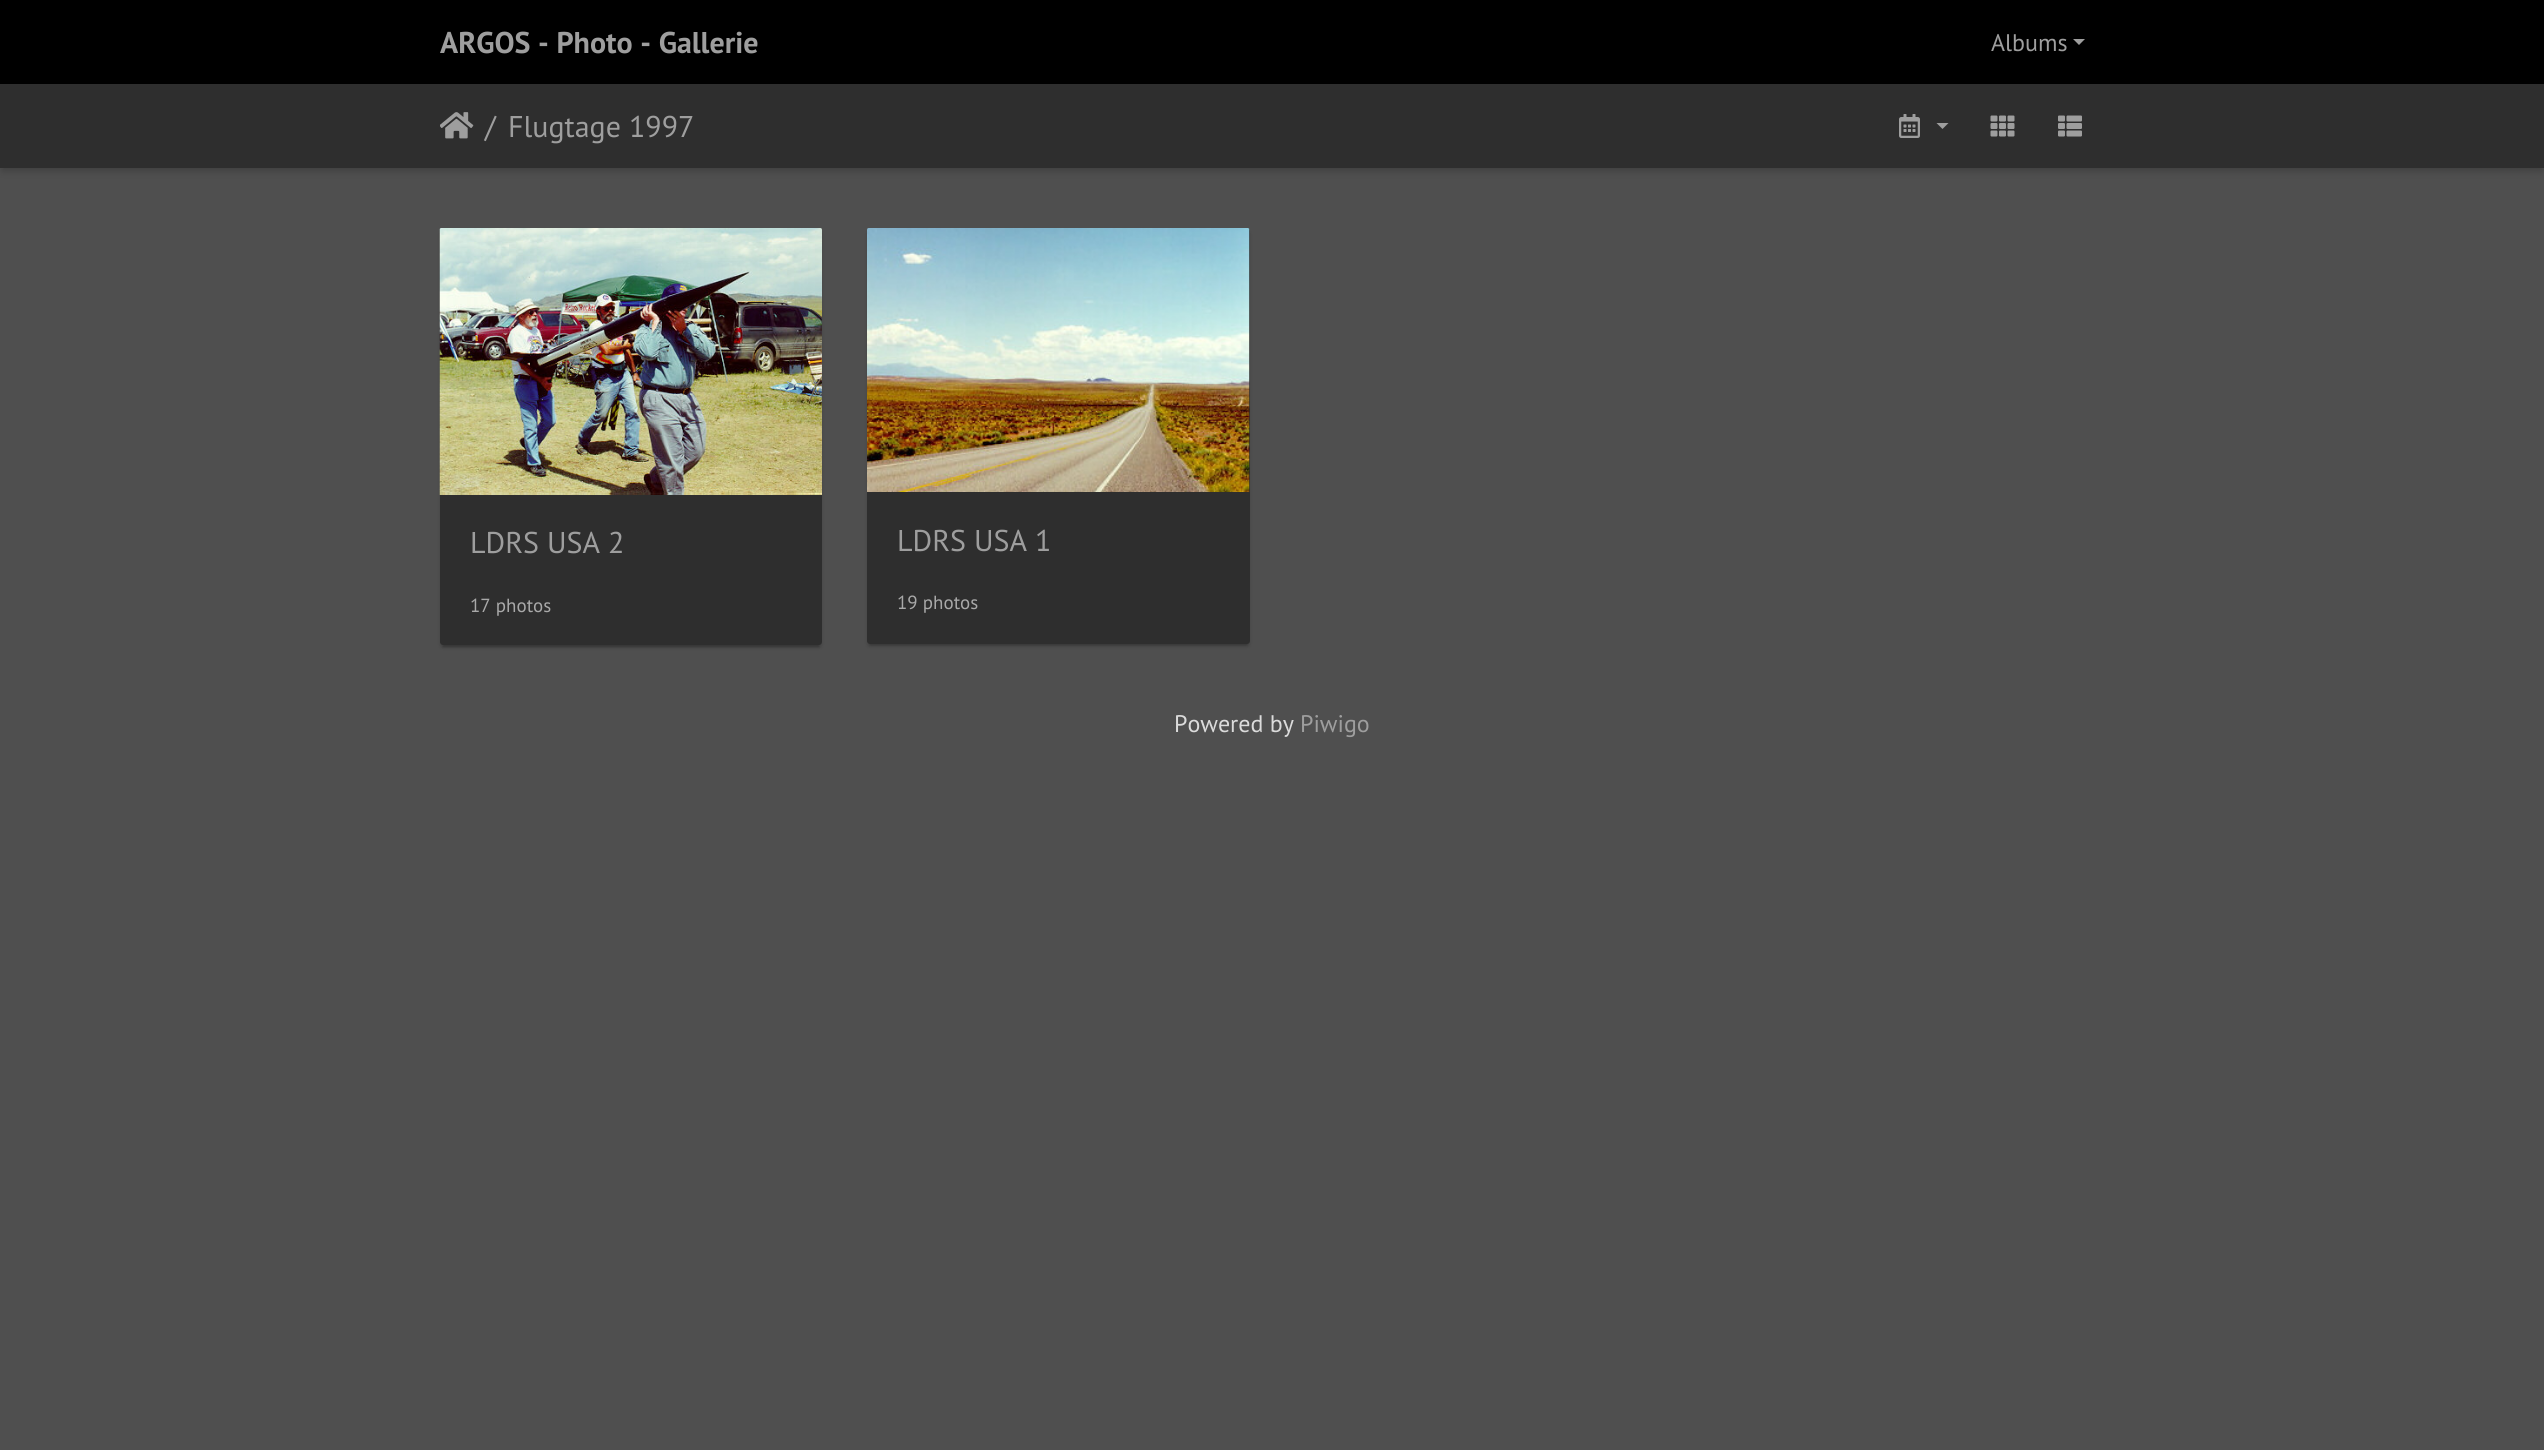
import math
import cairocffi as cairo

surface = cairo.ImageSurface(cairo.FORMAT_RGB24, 2544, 1450)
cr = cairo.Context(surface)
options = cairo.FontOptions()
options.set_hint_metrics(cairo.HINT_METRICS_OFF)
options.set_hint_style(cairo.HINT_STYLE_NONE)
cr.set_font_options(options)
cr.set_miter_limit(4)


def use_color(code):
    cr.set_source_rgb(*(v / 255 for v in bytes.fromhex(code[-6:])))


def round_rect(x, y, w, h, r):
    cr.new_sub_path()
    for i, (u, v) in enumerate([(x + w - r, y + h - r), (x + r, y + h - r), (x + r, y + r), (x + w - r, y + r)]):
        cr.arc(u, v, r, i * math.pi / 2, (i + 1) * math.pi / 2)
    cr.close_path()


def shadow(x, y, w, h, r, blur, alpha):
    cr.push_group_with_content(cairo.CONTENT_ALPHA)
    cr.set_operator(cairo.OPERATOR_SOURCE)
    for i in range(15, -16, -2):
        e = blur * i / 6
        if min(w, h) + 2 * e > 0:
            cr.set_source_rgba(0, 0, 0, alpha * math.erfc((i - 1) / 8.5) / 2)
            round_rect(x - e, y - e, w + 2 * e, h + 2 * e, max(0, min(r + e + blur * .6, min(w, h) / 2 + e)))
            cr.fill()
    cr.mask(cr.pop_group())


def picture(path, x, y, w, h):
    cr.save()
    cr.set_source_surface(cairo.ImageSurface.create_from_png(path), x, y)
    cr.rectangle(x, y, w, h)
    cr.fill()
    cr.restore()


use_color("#4f4f4f")
cr.paint()
use_color("#000000")
shadow(2, 90, 2541, 81, 0, 4, 0.2)
use_color("#000000")
cr.rectangle(0, 0, 2544, 84)
cr.fill()
cr.select_font_face("PT Sans", cairo.FONT_SLANT_NORMAL, cairo.FONT_WEIGHT_BOLD)
cr.set_font_size(30)
use_color("#9e9e9e")
cr.move_to(440, 53)
cr.show_text("ARGOS - Photo - Gallerie")
cr.select_font_face("PT Sans")
cr.set_font_size(24)
cr.move_to(1991, 51)
cr.show_text("Albums")
cr.new_path()
cr.move_to(2073, 39)
cr.line_to(2085, 39)
cr.line_to(2079, 45)
cr.close_path()
cr.fill()
use_color("#2e2e2e")
cr.rectangle(0, 84, 2544, 84)
cr.fill()
picture("img1.png", 440, 112, 34, 27)
cr.set_font_size(30)
use_color("#9e9e9e")
cr.move_to(485, 137)
cr.show_text("/")
cr.move_to(508, 137)
cr.show_text("Flugtage 1997")
picture("img2.png", 1899, 114, 21, 24)
cr.new_path()
cr.move_to(1936.5, 123)
cr.line_to(1948.5, 123)
cr.line_to(1942.5, 129)
cr.close_path()
cr.fill()
picture("img3.png", 1990, 115, 25, 22)
picture("img4.png", 2058, 115, 24, 22)
use_color("#000000")
shadow(443, 236, 376, 411, 0, 1, 0.2)
shadow(440, 231, 382, 417, 3, 1.5, 0.14)
use_color("#2e2e2e")
round_rect(440, 228, 382, 417, 3)
cr.fill()
picture("img5.png", 439, 228, 383, 267)
use_color("#9e9e9e")
cr.move_to(470, 553)
cr.show_text("LDRS USA 2")
cr.set_font_size(19)
use_color("#a9a9a9")
cr.move_to(470, 612)
cr.show_text("17 photos")
use_color("#000000")
shadow(870, 236, 377, 409, 0, 1, 0.2)
shadow(867, 231, 383, 416, 3, 1.5, 0.14)
use_color("#2e2e2e")
round_rect(867, 228, 383, 416, 3)
cr.fill()
picture("img6.png", 867, 228, 383, 264)
cr.set_font_size(30)
use_color("#9e9e9e")
cr.move_to(897, 551)
cr.show_text("LDRS USA 1")
cr.set_font_size(19)
use_color("#a9a9a9")
cr.move_to(897, 609)
cr.show_text("19 photos")
cr.set_font_size(24)
use_color("#dbdbdb")
cr.move_to(1174, 732)
cr.show_text("Powered by")
use_color("#9e9e9e")
cr.move_to(1300, 732)
cr.show_text("Piwigo")
surface.write_to_png("result.png")
